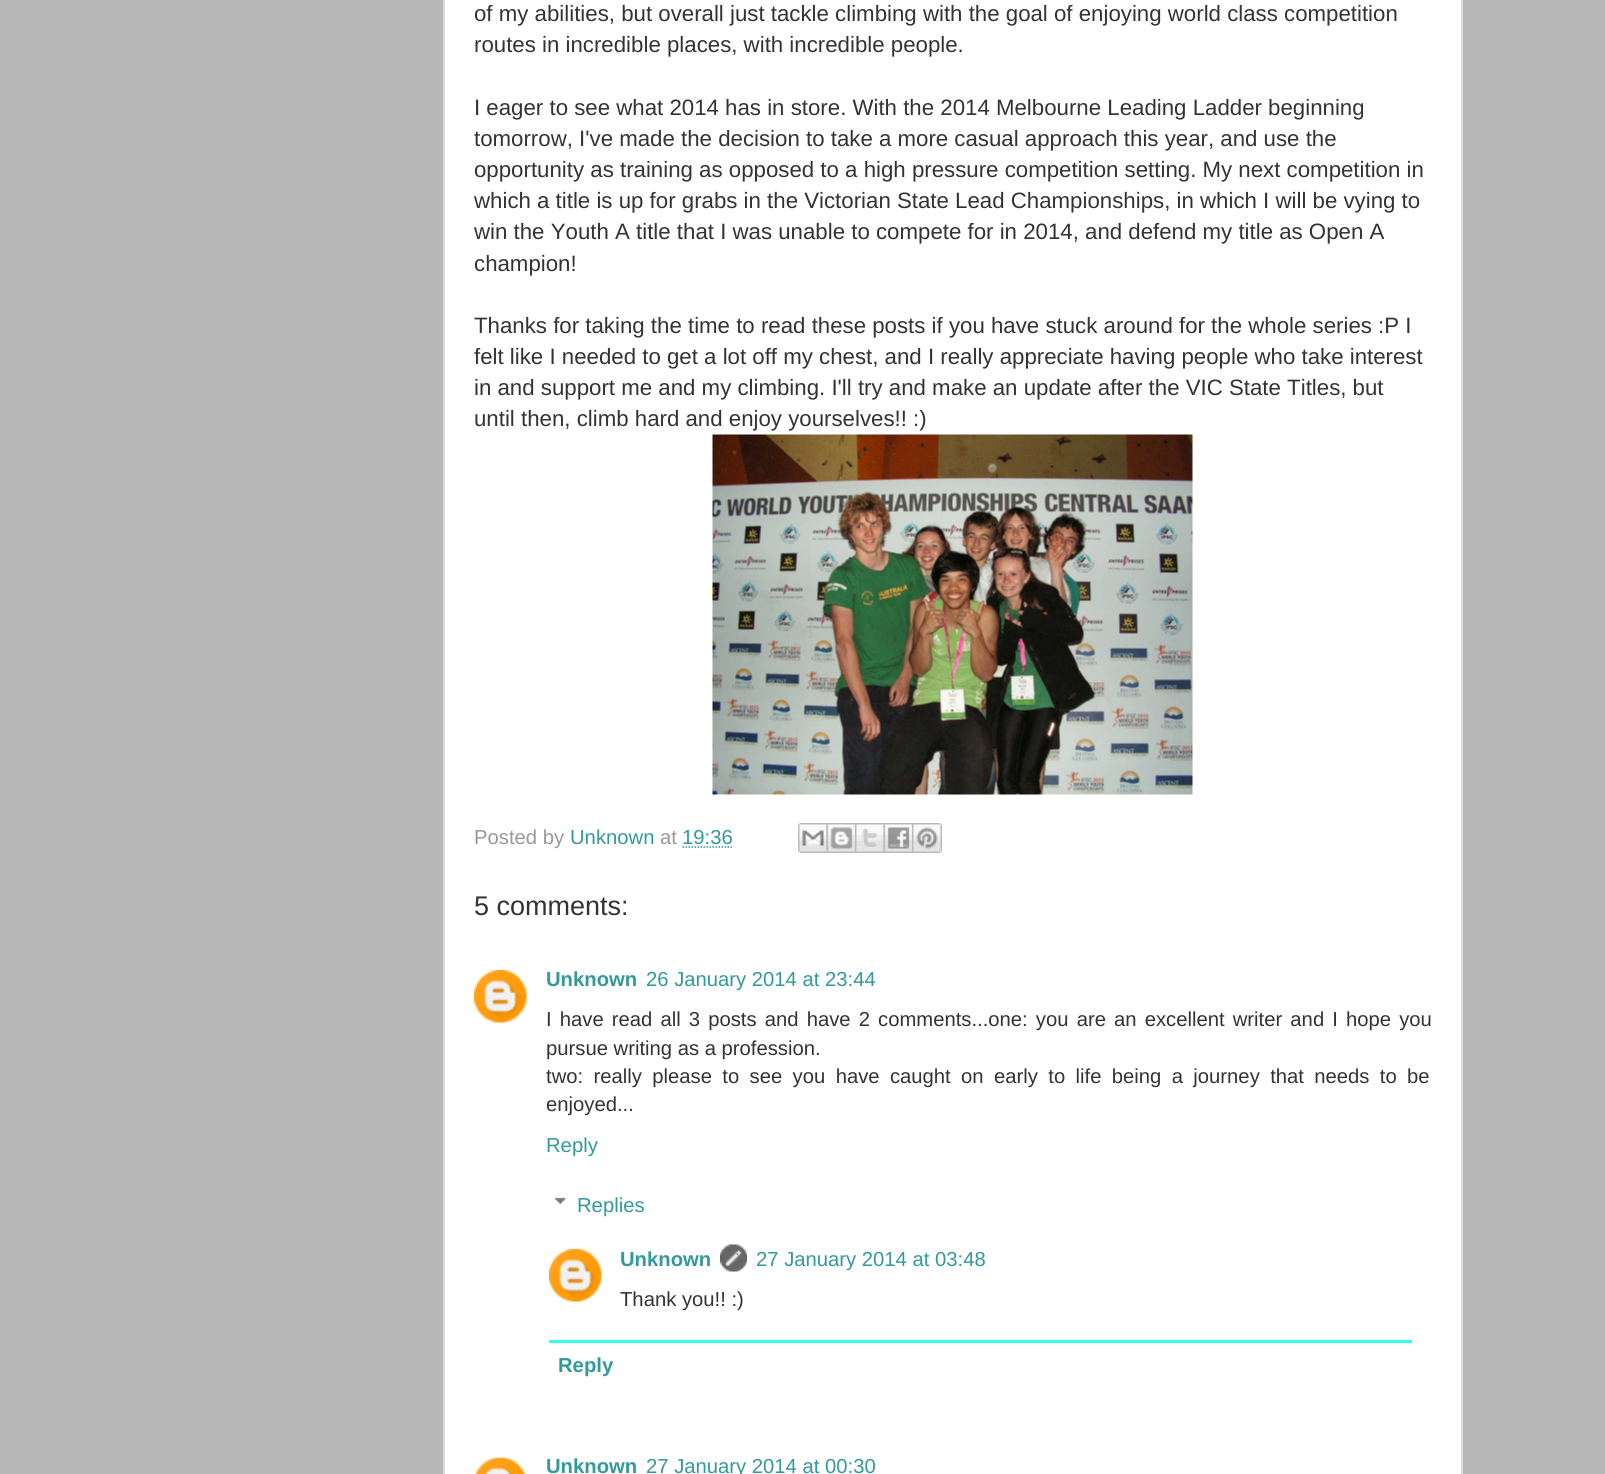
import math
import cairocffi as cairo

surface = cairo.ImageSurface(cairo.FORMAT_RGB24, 1605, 1474)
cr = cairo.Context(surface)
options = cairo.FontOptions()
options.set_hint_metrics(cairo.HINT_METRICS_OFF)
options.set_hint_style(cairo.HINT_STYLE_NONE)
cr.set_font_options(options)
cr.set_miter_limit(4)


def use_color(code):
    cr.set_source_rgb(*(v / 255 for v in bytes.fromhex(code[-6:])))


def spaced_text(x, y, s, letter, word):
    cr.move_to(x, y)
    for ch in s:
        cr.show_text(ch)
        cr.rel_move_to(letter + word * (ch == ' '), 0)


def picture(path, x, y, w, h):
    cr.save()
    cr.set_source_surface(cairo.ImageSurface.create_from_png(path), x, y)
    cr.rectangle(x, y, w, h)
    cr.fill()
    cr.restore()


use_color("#b7b7b7")
cr.paint()
use_color("#ffffff")
cr.rectangle(444, -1, 1018, 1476)
cr.fill_preserve()
use_color("#dddddd")
cr.stroke()
cr.select_font_face("Liberation Sans")
cr.set_font_size(22.25)
use_color("#333333")
cr.move_to(474, 21)
cr.show_text("of my abilities, but overall just tackle climbing with the goal of enjoying world class competition")
cr.move_to(474, 52)
cr.show_text("routes in incredible places, with incredible people.")
cr.move_to(474, 115)
cr.show_text("I eager to see what 2014 has in store. With the 2014 Melbourne Leading Ladder beginning")
cr.move_to(474, 146)
cr.show_text("tomorrow, I've made the decision to take a more casual approach this year, and use the")
cr.move_to(474, 177)
cr.show_text("opportunity as training as opposed to a high pressure competition setting. My next competition in")
cr.move_to(474, 208)
cr.show_text("which a title is up for grabs in the Victorian State Lead Championships, in which I will be vying to")
cr.move_to(474, 239)
cr.show_text("win the Youth A title that I was unable to compete for in 2014, and defend my title as Open A")
cr.move_to(474, 271)
cr.show_text("champion!")
cr.move_to(474, 333)
cr.show_text("Thanks for taking the time to read these posts if you have stuck around for the whole series :P I")
cr.move_to(474, 364)
cr.show_text("felt like I needed to get a lot off my chest, and I really appreciate having people who take interest")
cr.move_to(474, 395)
cr.show_text("in and support me and my climbing. I'll try and make an update after the VIC State Titles, but")
cr.move_to(474, 426)
cr.show_text("until then, climb hard and enjoy yourselves!! :)")
picture("img1.png", 712, 434, 481, 361)
cr.set_font_size(20.25)
use_color("#999999")
cr.move_to(474, 844)
cr.show_text("Posted by")
use_color("#339999")
cr.move_to(570, 844)
cr.show_text("Unknown")
use_color("#999999")
cr.move_to(660, 844)
cr.show_text("at")
use_color("#339999")
cr.move_to(682, 844)
cr.show_text("19:36")
cr.new_path()
cr.move_to(682.5, 847)
cr.line_to(733, 847)
cr.set_line_width(1.5)
cr.set_dash([1.5, 1.5])
cr.stroke()
picture("img2.png", 798, 823, 29, 30)
picture("img3.png", 826, 823, 29, 30)
picture("img4.png", 855, 823, 29, 30)
picture("img5.png", 883, 823, 29, 30)
picture("img6.png", 912, 823, 30, 30)
cr.set_font_size(27)
use_color("#333333")
cr.move_to(474, 915)
cr.show_text("5 comments:")
picture("img7.png", 474, 970, 53, 53)
cr.select_font_face("Liberation Sans", cairo.FONT_SLANT_NORMAL, cairo.FONT_WEIGHT_BOLD)
cr.set_font_size(20.25)
use_color("#339999")
cr.move_to(546, 986)
cr.show_text("Unknown")
cr.select_font_face("Liberation Sans")
cr.move_to(646, 986)
cr.show_text("26 January 2014 at 23:44")
use_color("#333333")
spaced_text(546, 1026, "I have read all 3 posts and have 2 comments...one: you are an excellent writer and I hope you", 0, 2.5)
cr.move_to(546, 1055)
cr.show_text("pursue writing as a profession.")
spaced_text(546, 1083, "two: really please to see you have caught on early to life being a journey that needs to be", 0, 4.75)
cr.move_to(546, 1111)
cr.show_text("enjoyed...")
use_color("#339999")
cr.move_to(546, 1152)
cr.show_text("Reply")
picture("img8.png", 555, 1197, 11, 8)
cr.move_to(577, 1212)
cr.show_text("Replies")
picture("img9.png", 549, 1249, 53, 53)
cr.select_font_face("Liberation Sans", cairo.FONT_SLANT_NORMAL, cairo.FONT_WEIGHT_BOLD)
cr.move_to(620, 1266)
cr.show_text("Unknown")
picture("img10.png", 720, 1244, 27, 28)
cr.select_font_face("Liberation Sans")
cr.move_to(756, 1266)
cr.show_text("27 January 2014 at 03:48")
use_color("#333333")
cr.move_to(620, 1306)
cr.show_text("Thank you!! :)")
use_color("#32ffed")
cr.rectangle(549, 1340, 863, 3)
cr.fill()
cr.select_font_face("Liberation Sans", cairo.FONT_SLANT_NORMAL, cairo.FONT_WEIGHT_BOLD)
use_color("#339999")
cr.move_to(558, 1372)
cr.show_text("Reply")
picture("img11.png", 475, 1457, 51, 17)
cr.move_to(546, 1473)
cr.show_text("Unknown")
cr.select_font_face("Liberation Sans")
cr.move_to(646, 1473)
cr.show_text("27 January 2014 at 00:30")
surface.write_to_png("result.png")
